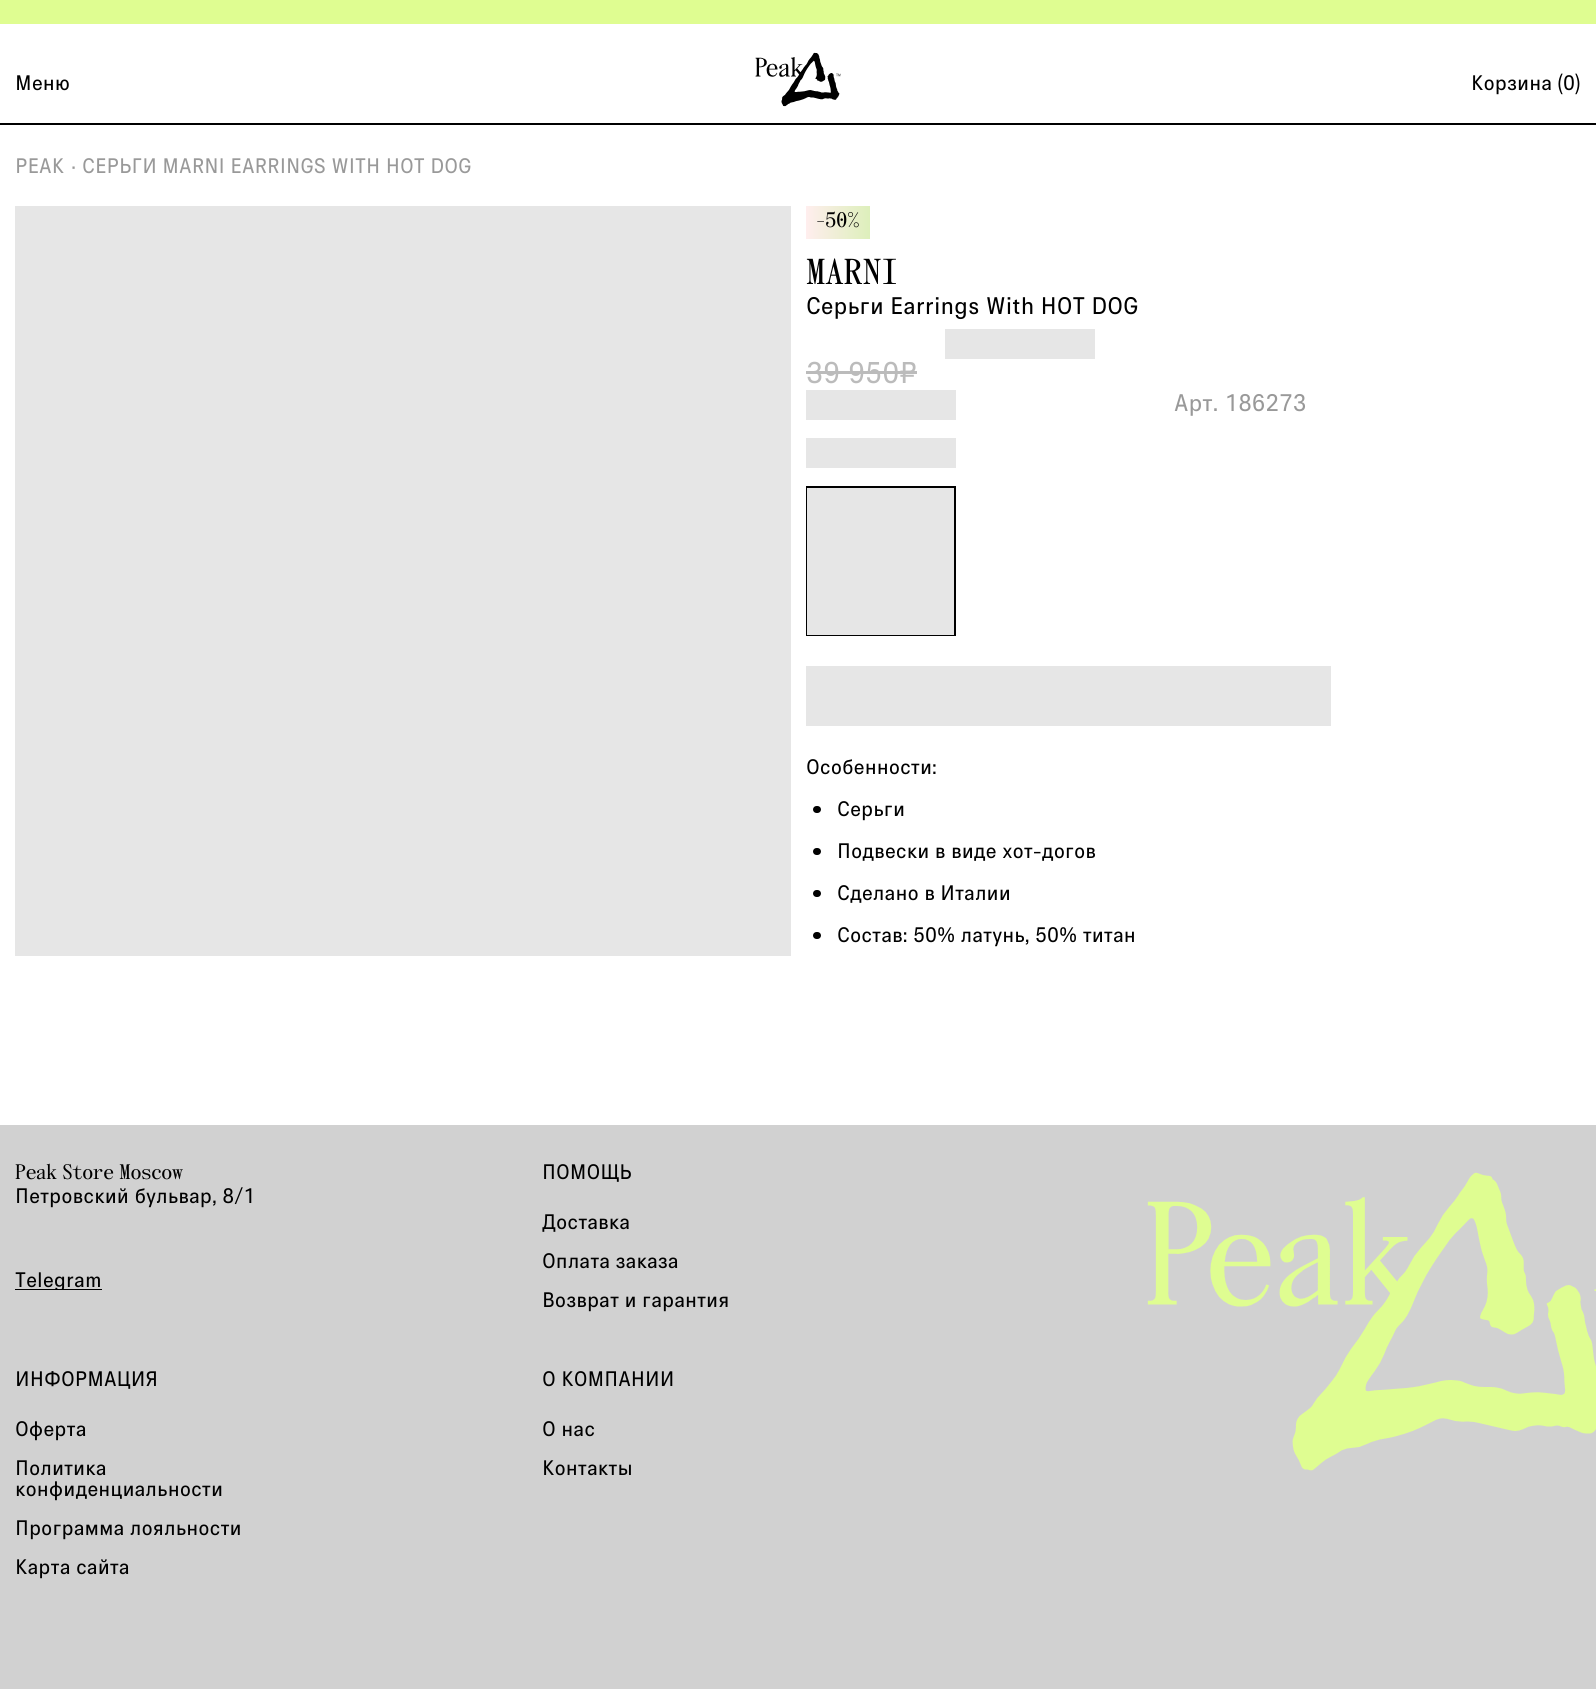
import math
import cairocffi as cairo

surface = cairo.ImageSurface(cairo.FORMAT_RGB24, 1596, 1689)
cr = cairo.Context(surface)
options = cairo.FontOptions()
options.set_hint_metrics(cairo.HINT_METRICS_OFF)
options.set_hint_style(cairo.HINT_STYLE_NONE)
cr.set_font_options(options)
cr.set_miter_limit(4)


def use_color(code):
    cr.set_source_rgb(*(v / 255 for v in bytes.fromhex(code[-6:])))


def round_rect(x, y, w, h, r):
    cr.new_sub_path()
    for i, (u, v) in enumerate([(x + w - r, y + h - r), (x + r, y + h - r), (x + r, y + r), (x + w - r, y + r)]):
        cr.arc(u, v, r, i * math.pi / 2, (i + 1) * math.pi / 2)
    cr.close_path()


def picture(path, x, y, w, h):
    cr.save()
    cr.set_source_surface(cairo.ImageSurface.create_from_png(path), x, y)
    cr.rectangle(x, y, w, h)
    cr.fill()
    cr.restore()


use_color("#ffffff")
cr.paint()
use_color("#dffd91")
cr.rectangle(0, 0, 1596, 24)
cr.fill()
use_color("#000000")
cr.rectangle(0, 123, 1596, 2)
cr.fill()
cr.select_font_face("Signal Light")
cr.set_font_size(21)
cr.move_to(15, 90)
cr.show_text("Меню")
picture("img1.png", 755, 52, 86, 55)
cr.move_to(1471, 90)
cr.show_text("Корзина")
cr.move_to(1557, 90)
cr.show_text("(0")
cr.move_to(1575, 90)
cr.show_text(")")
use_color("#999999")
cr.move_to(15, 173)
cr.show_text("PEAK")
cr.move_to(71, 173)
cr.show_text("·")
cr.move_to(82, 173)
cr.show_text("СЕРЬГИ MARNI EARRINGS WITH HOT DOG")
use_color("#e6e6e6")
cr.rectangle(15, 206, 776, 750)
cr.fill()
gradient = cairo.LinearGradient(806, 222, 870, 222)
gradient.add_color_stop_rgba(0, 1, 0.933, 0.933, 1)
gradient.add_color_stop_rgba(1, 0.867, 0.937, 0.733, 1)
cr.set_source(gradient)
cr.rectangle(806, 206, 64, 33)
cr.fill()
cr.select_font_face("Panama", cairo.FONT_SLANT_NORMAL, cairo.FONT_WEIGHT_BOLD)
use_color("#000000")
cr.move_to(816, 227)
cr.show_text("-50%")
cr.set_font_size(36)
cr.move_to(806, 284)
cr.show_text("MARNI")
cr.select_font_face("Signal Light")
cr.set_font_size(24)
cr.move_to(806, 314)
cr.show_text("Серьги Earrings With HOT DOG")
use_color("#e6e6e6")
cr.rectangle(945, 329, 150, 30)
cr.fill()
cr.set_font_size(30)
use_color("#bbbbbb")
cr.move_to(806, 383)
cr.show_text("39 950₽")
cr.rectangle(806, 371, 111, 3)
cr.fill()
use_color("#e6e6e6")
cr.rectangle(806, 390, 150, 30)
cr.fill()
cr.set_font_size(24)
use_color("#999999")
cr.move_to(1174, 411)
cr.show_text("Арт. 186273")
use_color("#e6e6e6")
cr.rectangle(806, 438, 150, 30)
cr.fill()
cr.rectangle(807, 487, 148, 148)
use_color("#000000")
cr.stroke()
use_color("#e6e6e6")
cr.rectangle(807, 488, 147, 147)
cr.fill()
cr.rectangle(806, 666, 525, 60)
cr.fill()
cr.set_font_size(21)
use_color("#000000")
cr.move_to(806, 774)
cr.show_text("Особенности:")
round_rect(813, 806, 8, 7, 3.5)
cr.fill()
cr.move_to(837, 816)
cr.show_text("Серьги")
round_rect(813, 848, 8, 7, 3.5)
cr.fill()
cr.move_to(837, 858)
cr.show_text("Подвески в виде хот-догов")
round_rect(813, 890, 8, 7, 3.5)
cr.fill()
cr.move_to(837, 900)
cr.show_text("Сделано в Италии")
round_rect(813, 932, 8, 7, 3.5)
cr.fill()
cr.move_to(837, 942)
cr.show_text("Состав: 50% латунь, 50% титан")
use_color("#d1d1d1")
cr.rectangle(0, 1125, 1596, 564)
cr.fill()
cr.select_font_face("Panama", cairo.FONT_SLANT_NORMAL, cairo.FONT_WEIGHT_BOLD)
use_color("#000000")
cr.move_to(15, 1179)
cr.show_text("Peak Store Moscow")
cr.select_font_face("Signal Light")
cr.move_to(15, 1203)
cr.show_text("Петровский бульвар, 8/1")
cr.save()
cr.rectangle(15, 1269, 87, 21)
cr.clip()
cr.move_to(15, 1287)
cr.show_text("Telegram")
cr.restore()
cr.rectangle(15, 1289, 87, 1)
cr.fill()
cr.move_to(542, 1179)
cr.show_text("ПОМОЩЬ")
cr.move_to(542, 1229)
cr.show_text("Доставка")
cr.move_to(542, 1268)
cr.show_text("Оплата заказа")
cr.move_to(542, 1307)
cr.show_text("Возврат и гарантия")
cr.move_to(15, 1386)
cr.show_text("ИНФОРМАЦИЯ")
cr.move_to(15, 1436)
cr.show_text("Оферта")
cr.move_to(15, 1475)
cr.show_text("Политика")
cr.move_to(15, 1496)
cr.show_text("конфиденциальности")
cr.move_to(15, 1535)
cr.show_text("Программа лояльности")
cr.move_to(15, 1574)
cr.show_text("Карта сайта")
cr.move_to(542, 1386)
cr.show_text("О КОМПАНИИ")
cr.move_to(542, 1436)
cr.show_text("О нас")
cr.move_to(542, 1475)
cr.show_text("Контакты")
picture("img2.png", 1147, 1172, 449, 299)
surface.write_to_png("result.png")
